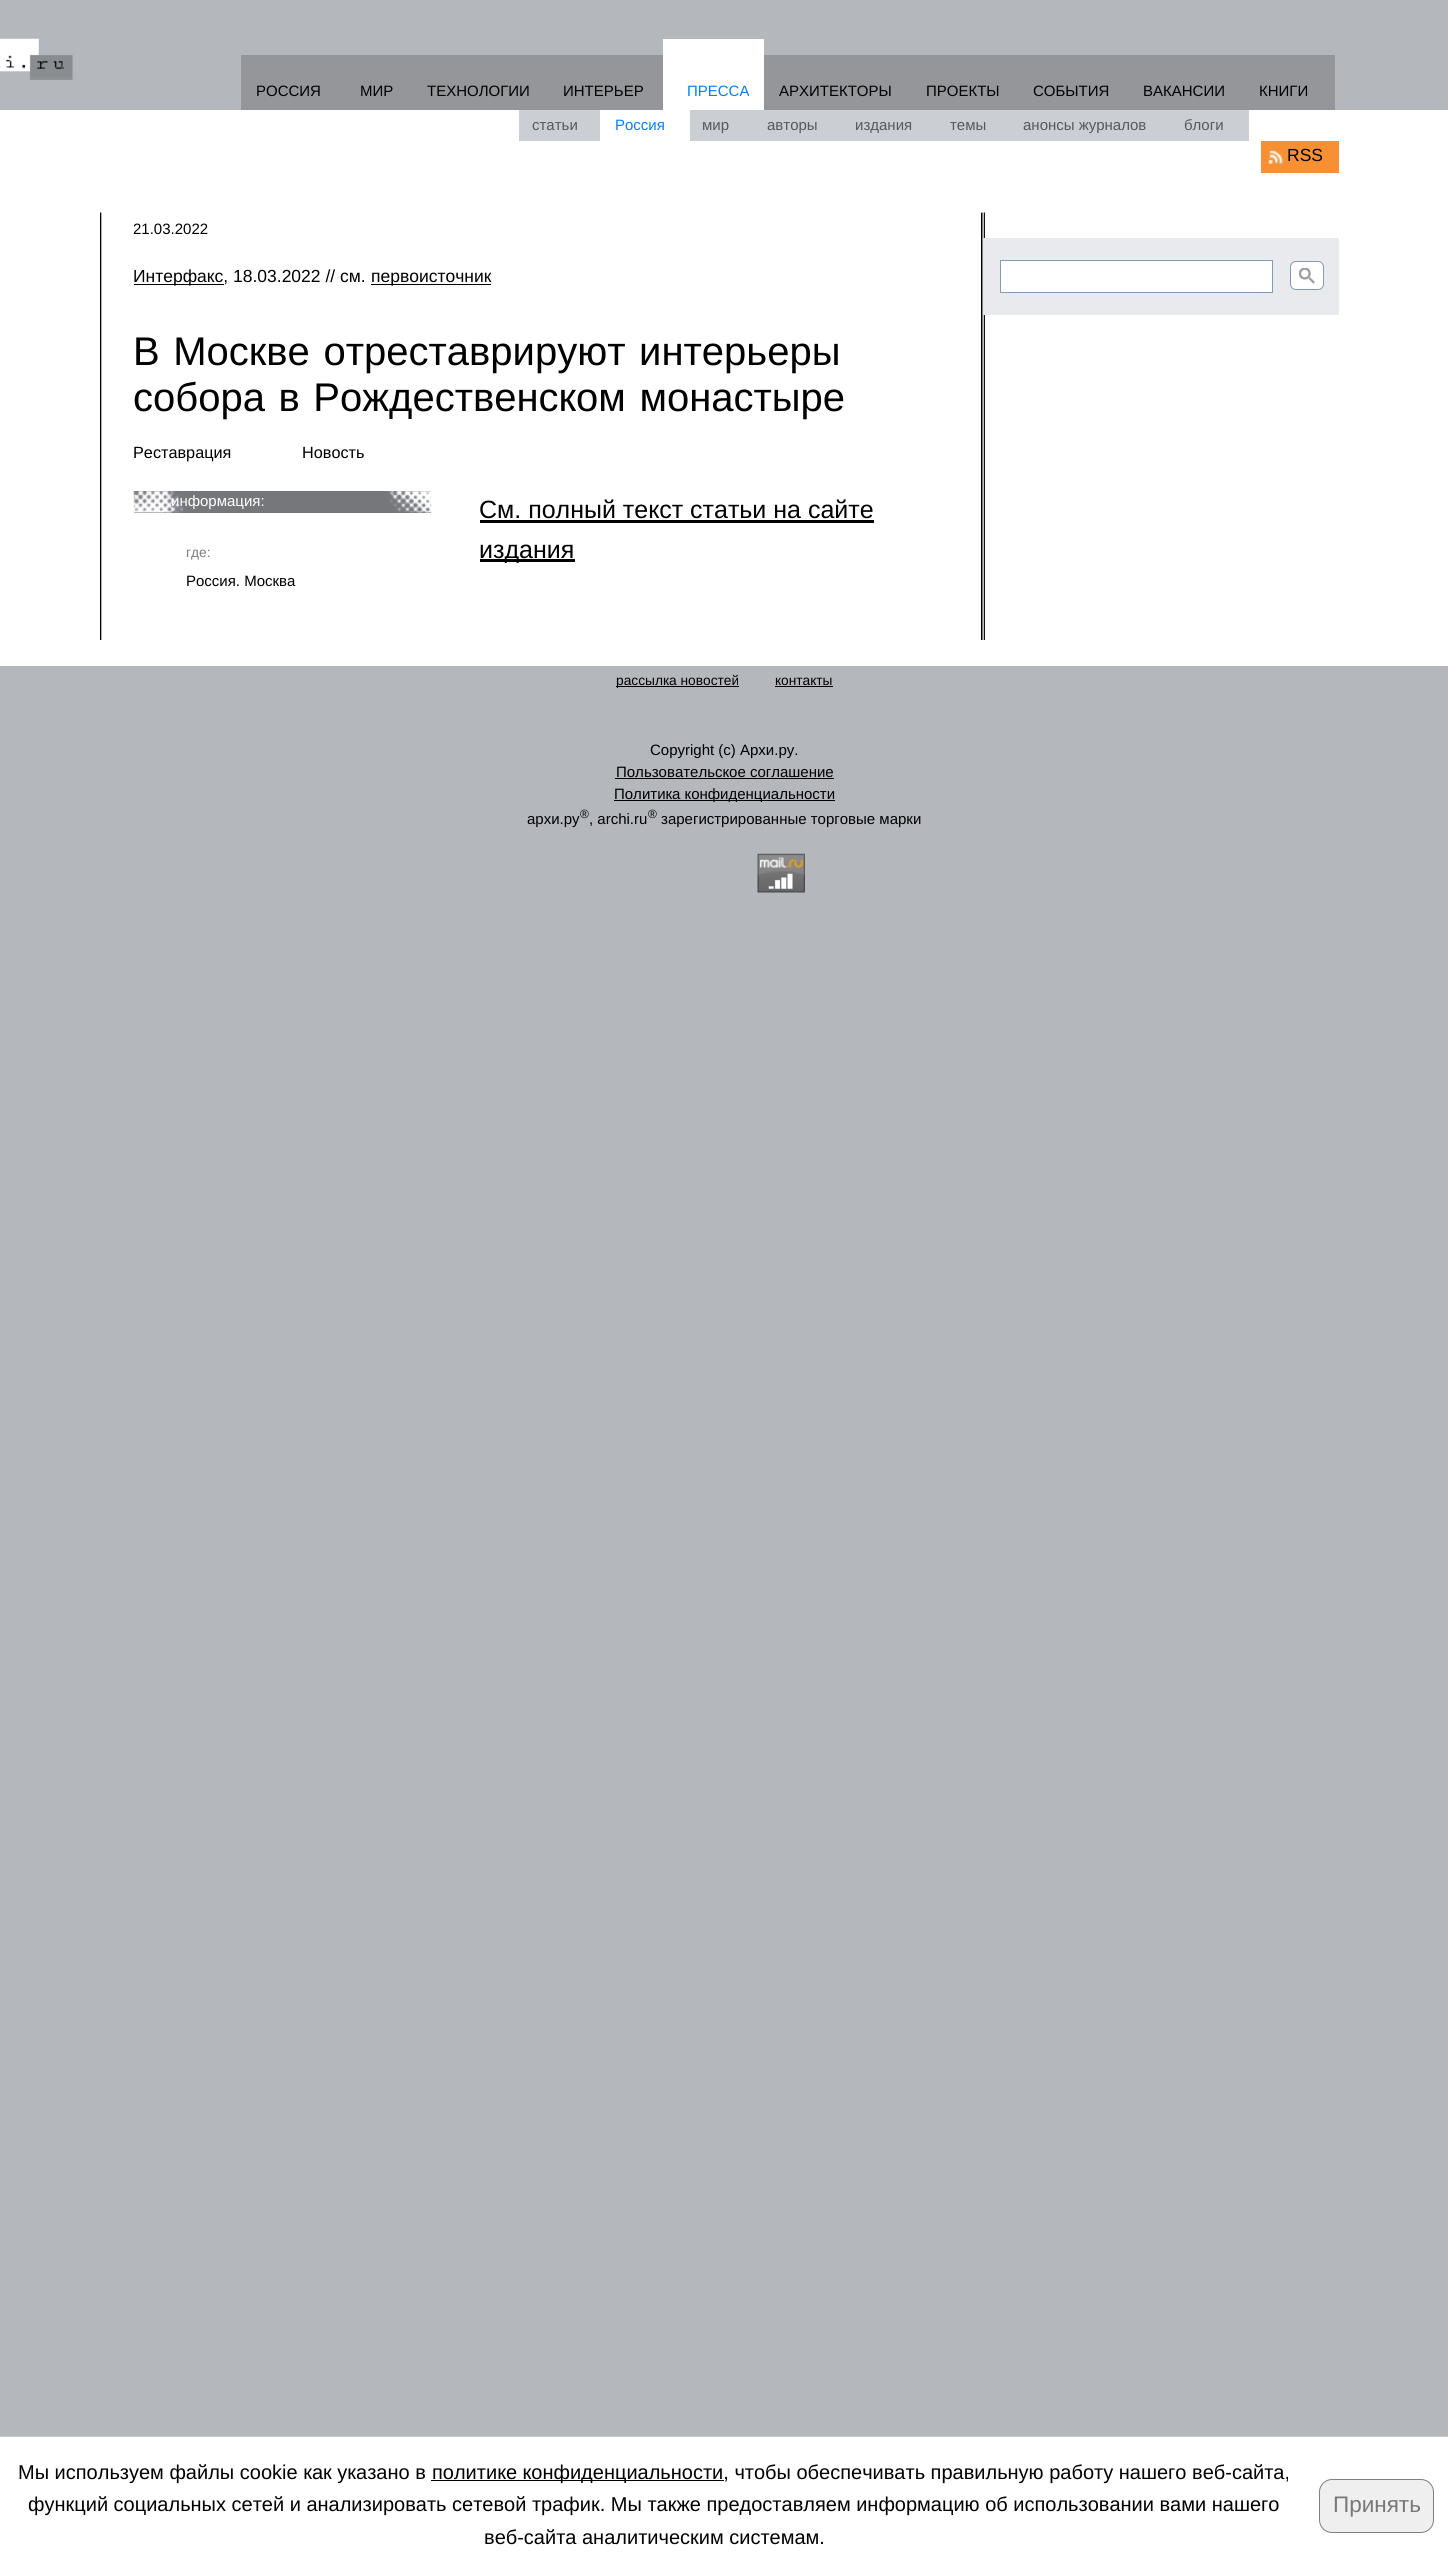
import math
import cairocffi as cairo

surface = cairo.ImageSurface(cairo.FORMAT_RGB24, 1448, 2573)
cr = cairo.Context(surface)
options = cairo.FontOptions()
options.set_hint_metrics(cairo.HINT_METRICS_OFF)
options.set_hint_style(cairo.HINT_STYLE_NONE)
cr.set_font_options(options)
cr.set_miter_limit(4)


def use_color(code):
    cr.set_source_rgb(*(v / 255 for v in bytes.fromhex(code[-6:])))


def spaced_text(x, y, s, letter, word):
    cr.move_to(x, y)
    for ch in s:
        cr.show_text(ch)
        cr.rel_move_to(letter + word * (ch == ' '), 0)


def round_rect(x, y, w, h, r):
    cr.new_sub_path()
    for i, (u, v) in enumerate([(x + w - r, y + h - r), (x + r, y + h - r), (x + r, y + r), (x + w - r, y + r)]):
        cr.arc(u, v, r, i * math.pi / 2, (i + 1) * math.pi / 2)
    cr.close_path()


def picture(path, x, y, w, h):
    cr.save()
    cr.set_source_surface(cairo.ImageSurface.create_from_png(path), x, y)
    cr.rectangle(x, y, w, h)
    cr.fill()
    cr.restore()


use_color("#b4b8bd")
cr.paint()
picture("img1.png", 0, 38, 73, 42)
use_color("#949699")
cr.rectangle(241, 55, 422, 55)
cr.fill()
cr.select_font_face("Liberation Sans")
cr.set_font_size(15)
use_color("#000000")
cr.move_to(256, 96)
cr.show_text("РОССИЯ")
cr.move_to(360, 96)
cr.show_text("МИР")
cr.move_to(427, 96)
cr.show_text("ТЕХНОЛОГИИ")
use_color("#ffffff")
cr.rectangle(663, 39, 101, 71)
cr.fill()
use_color("#0080ff")
cr.move_to(687, 96)
cr.show_text("ПРЕССА")
use_color("#ffffff")
cr.rectangle(0, 110, 1448, 556)
cr.fill()
use_color("#cbcfd4")
cr.rectangle(519, 110, 81, 31)
cr.fill()
use_color("#545960")
cr.move_to(532, 130)
cr.show_text("статьи")
use_color("#0080ff")
cr.move_to(615, 130)
cr.show_text("Россия")
use_color("#cbcfd4")
cr.rectangle(690, 110, 559, 31)
cr.fill()
use_color("#545960")
cr.move_to(702, 130)
cr.show_text("мир")
cr.move_to(767, 130)
cr.show_text("авторы")
cr.move_to(855, 130)
cr.show_text("издания")
cr.move_to(950, 130)
cr.show_text("темы")
cr.move_to(1023, 130)
cr.show_text("анонсы журналов")
cr.move_to(1184, 130)
cr.show_text("блоги")
use_color("#000000")
cr.move_to(563, 96)
cr.show_text("ИНТЕРЬЕР")
use_color("#949699")
cr.rectangle(764, 55, 571, 55)
cr.fill()
use_color("#000000")
cr.move_to(779, 96)
cr.show_text("АРХИТЕКТОРЫ")
cr.move_to(926, 96)
cr.show_text("ПРОЕКТЫ")
cr.move_to(1033, 96)
cr.show_text("СОБЫТИЯ")
cr.move_to(1143, 96)
cr.show_text("ВАКАНСИИ")
cr.move_to(1259, 96)
cr.show_text("КНИГИ")
use_color("#f78f33")
cr.rectangle(1261, 141, 78, 32)
cr.fill()
picture("img2.png", 1268, 150, 15, 14)
cr.set_font_size(17.5)
use_color("#000000")
cr.move_to(1287, 161)
cr.show_text("RSS")
picture("img3.png", 100, 212, 885, 428)
cr.rectangle(981, 213, 1, 427)
cr.fill()
cr.rectangle(100, 213, 1, 427)
cr.fill()
cr.set_font_size(15)
cr.move_to(133, 234)
cr.show_text("21.03.2022")
cr.rectangle(134, 284, 90, 1)
cr.fill()
cr.set_font_size(17.5)
cr.move_to(133, 282)
cr.show_text("Интерфакс, 18.03.2022 // см.")
cr.rectangle(371, 284, 120, 1)
cr.fill()
cr.move_to(371, 282)
cr.show_text("первоисточник")
cr.set_font_size(40)
spaced_text(133, 365, "В Москве отреставрируют интерьеры", 0, 2.5)
spaced_text(133, 411, "собора в Рождественском монастыре", 0, 2.5)
cr.set_font_size(16.25)
cr.move_to(133, 458)
cr.show_text("Реставрация")
cr.move_to(302, 458)
cr.show_text("Новость")
use_color("#75777a")
cr.rectangle(134, 491, 297, 22)
cr.fill()
picture("img4.png", 133, 491, 299, 22)
cr.set_font_size(15)
use_color("#ffffff")
cr.move_to(171, 506)
cr.show_text("информация:")
cr.set_font_size(13.75)
use_color("#7e7e7e")
cr.move_to(186, 557)
cr.show_text("где:")
cr.set_font_size(15)
use_color("#000000")
cr.move_to(186, 586)
cr.show_text("Россия. Москва")
cr.set_font_size(25)
cr.move_to(479, 518)
cr.show_text("См. полный текст статьи на сайте")
cr.rectangle(480, 520, 394, 3)
cr.fill()
cr.rectangle(480, 559, 95, 3)
cr.fill()
cr.move_to(479, 558)
cr.show_text("издания")
use_color("#e8eaee")
cr.rectangle(983, 238, 356, 77)
cr.fill()
use_color("#ffffff")
cr.rectangle(1000.5, 260.5, 272, 32)
cr.fill_preserve()
use_color("#7f9db9")
cr.set_line_width(1)
cr.stroke()
use_color("#ffffff")
round_rect(1290.5, 261.5, 33, 28, 5.5)
cr.fill_preserve()
use_color("#7f9db9")
cr.stroke()
picture("img5.png", 1299, 268, 16, 16)
use_color("#000000")
cr.rectangle(616, 686, 123, 1)
cr.fill()
cr.set_font_size(13.75)
cr.move_to(616, 685)
cr.show_text("рассылка новостей")
cr.move_to(775, 685)
cr.show_text("контакты")
cr.rectangle(775, 686, 58, 1)
cr.fill()
cr.set_font_size(15)
cr.move_to(650, 755)
cr.show_text("Copyright (c) Архи.ру.")
cr.move_to(616, 777)
cr.show_text("Пользовательское соглашение")
cr.rectangle(615, 778, 219, 1)
cr.fill()
cr.rectangle(614, 800, 221, 1)
cr.fill()
cr.move_to(614, 799)
cr.show_text("Политика конфиденциальности")
cr.move_to(527, 824)
cr.show_text("архи.ру")
cr.set_font_size(12)
cr.move_to(580, 818)
cr.show_text("®")
cr.set_font_size(15)
cr.move_to(589, 824)
cr.show_text(", archi.ru")
cr.set_font_size(12)
cr.move_to(648, 818)
cr.show_text("®")
cr.set_font_size(15)
cr.move_to(661, 824)
cr.show_text("зарегистрированные торговые марки")
picture("img6.png", 757, 853, 48, 40)
use_color("#ffffff")
cr.rectangle(-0.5, 2436.5, 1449, 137)
cr.fill_preserve()
use_color("#cbcbcb")
cr.stroke()
cr.set_font_size(20)
use_color("#000000")
cr.move_to(18, 2479)
cr.show_text("Мы используем файлы cookie как указано в")
cr.rectangle(431, 2480, 293, 1)
cr.fill()
cr.move_to(432, 2479)
cr.show_text("политике конфиденциальности, чтобы обеспечивать правильную работу нашего веб-сайта,")
cr.move_to(28, 2511)
cr.show_text("функций социальных сетей и анализировать сетевой трафик. Мы также предоставляем информацию об использовании вами нашего")
cr.move_to(484, 2544)
cr.show_text("веб-сайта аналитическим системам.")
use_color("#efefef")
round_rect(1319.5, 2479.5, 114, 53, 12.5)
cr.fill_preserve()
use_color("#808080")
cr.stroke()
cr.set_font_size(22.5)
use_color("#787878")
cr.move_to(1333, 2512)
cr.show_text("Принять")
surface.write_to_png("result.png")
